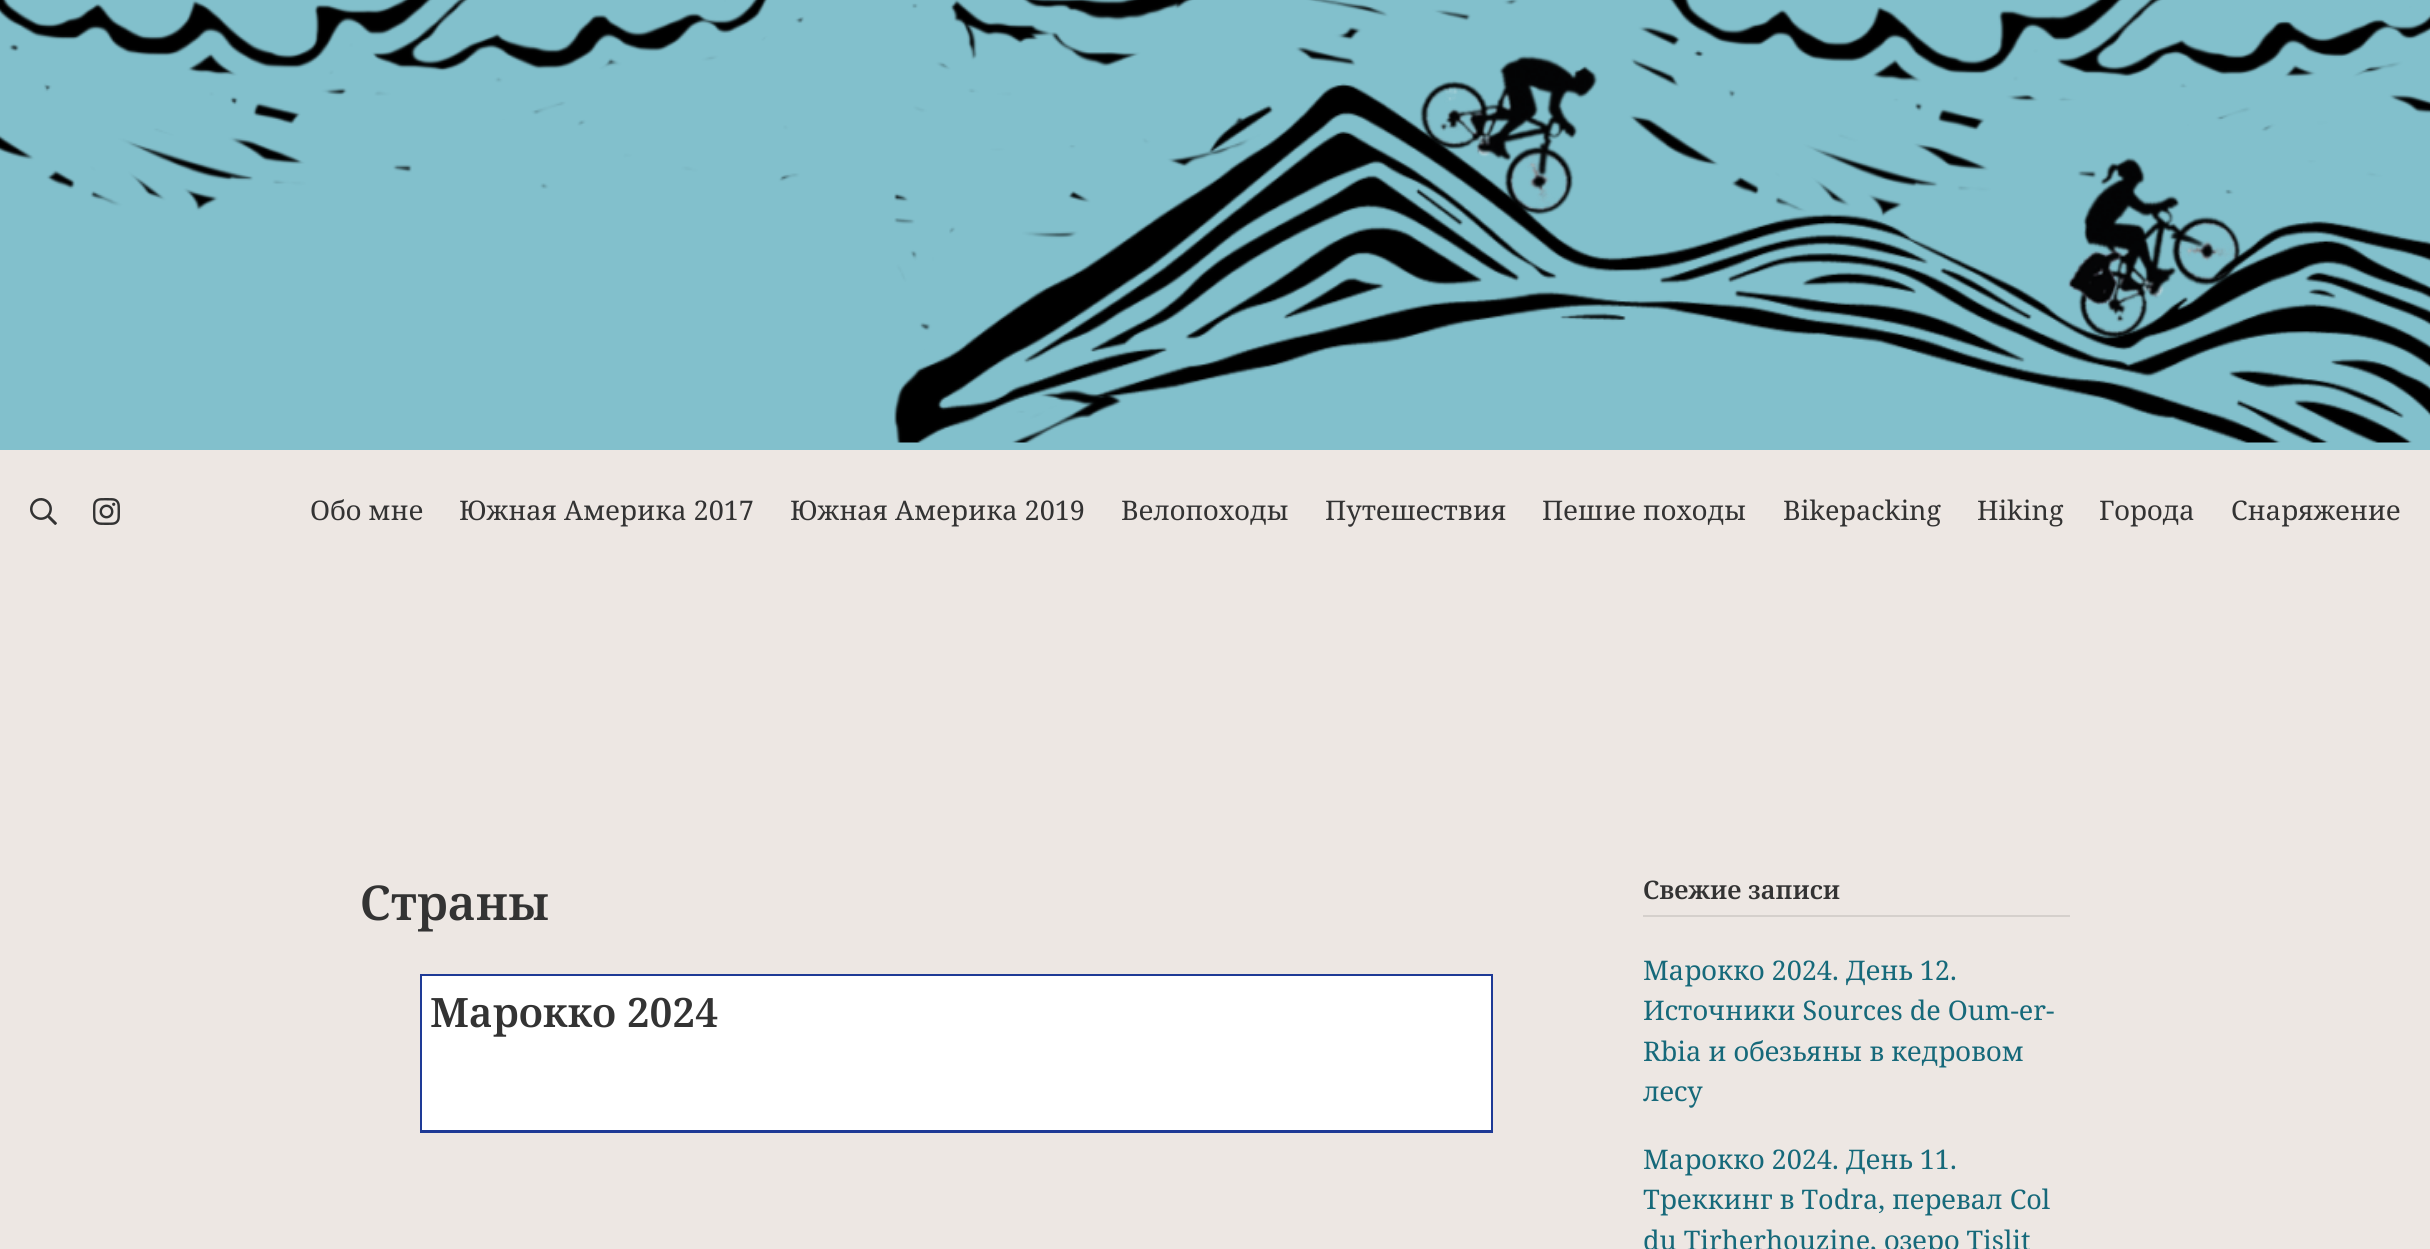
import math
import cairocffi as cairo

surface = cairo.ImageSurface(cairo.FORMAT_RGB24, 2430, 1249)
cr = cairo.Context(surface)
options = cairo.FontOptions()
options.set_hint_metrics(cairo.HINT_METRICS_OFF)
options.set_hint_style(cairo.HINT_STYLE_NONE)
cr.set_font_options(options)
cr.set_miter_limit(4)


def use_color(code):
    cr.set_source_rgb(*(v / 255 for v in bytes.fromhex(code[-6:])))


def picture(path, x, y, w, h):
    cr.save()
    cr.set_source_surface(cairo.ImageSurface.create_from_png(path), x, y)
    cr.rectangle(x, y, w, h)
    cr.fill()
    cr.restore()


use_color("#ede7e3")
cr.paint()
use_color("#82c0cc")
cr.rectangle(0, 0, 2430, 450)
cr.fill()
picture("img1.png", 0, 0, 2430, 443)
picture("img2.png", 30, 498, 27, 27)
picture("img3.png", 93, 498, 27, 27)
cr.select_font_face("Noto Serif")
cr.set_font_size(27)
use_color("#333333")
cr.move_to(310, 520)
cr.show_text("Обо мне")
cr.move_to(459, 520)
cr.show_text("Южная Америка 2017")
cr.move_to(790, 520)
cr.show_text("Южная Америка 2019")
cr.move_to(1121, 520)
cr.show_text("Велопоходы")
cr.move_to(1325, 520)
cr.show_text("Путешествия")
cr.move_to(1542, 520)
cr.show_text("Пешие походы")
cr.move_to(1783, 520)
cr.show_text("Bikepacking")
cr.move_to(1977, 520)
cr.show_text("Hiking")
cr.move_to(2099, 520)
cr.show_text("Города")
cr.move_to(2231, 520)
cr.show_text("Снаряжение")
cr.select_font_face("Noto Serif SemiBold")
cr.set_font_size(48)
cr.move_to(360, 920)
cr.show_text("Страны")
use_color("#ffffff")
cr.rectangle(422, 976, 1069, 154)
cr.fill()
use_color("#1e3a96")
cr.rectangle(420, 974, 1073, 2)
cr.fill()
cr.rectangle(1491, 974, 2, 159)
cr.fill()
cr.rectangle(420, 1130, 1073, 3)
cr.fill()
cr.rectangle(420, 974, 2, 159)
cr.fill()
cr.set_font_size(40.5)
use_color("#333333")
cr.move_to(430, 1027)
cr.show_text("Марокко 2024")
use_color("#d5d0cc")
cr.rectangle(1643, 915, 427, 2)
cr.fill()
cr.set_font_size(25.5)
use_color("#333333")
cr.move_to(1643, 899)
cr.show_text("Свежие записи")
cr.select_font_face("Noto Serif")
cr.set_font_size(27)
use_color("#16697a")
cr.move_to(1643, 980)
cr.show_text("Марокко 2024. День 12.")
cr.move_to(1643, 1020)
cr.show_text("Источники Sources de Oum-er-")
cr.move_to(1643, 1061)
cr.show_text("Rbia и обезьяны в кедровом")
cr.save()
cr.rectangle(1643, 870, 427, 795)
cr.clip()
cr.move_to(1643, 1101)
cr.show_text("лесу")
cr.restore()
cr.move_to(1643, 1169)
cr.show_text("Марокко 2024. День 11.")
cr.move_to(1643, 1209)
cr.show_text("Треккинг в Todra, перевал Col")
cr.move_to(1643, 1250)
cr.show_text("du Tirherhouzine, озеро Tislit")
surface.write_to_png("result.png")
